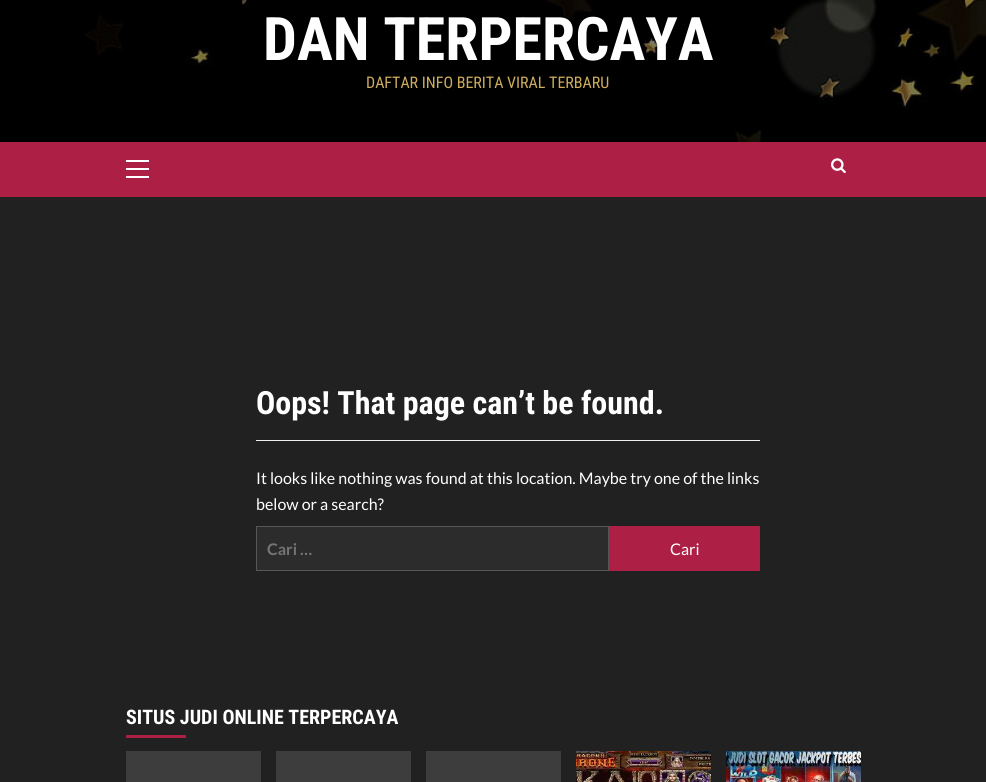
import math
import cairocffi as cairo

surface = cairo.ImageSurface(cairo.FORMAT_RGB24, 986, 782)
cr = cairo.Context(surface)
options = cairo.FontOptions()
options.set_hint_metrics(cairo.HINT_METRICS_OFF)
options.set_hint_style(cairo.HINT_STYLE_NONE)
cr.set_font_options(options)
cr.set_miter_limit(4)


def use_color(code):
    cr.set_source_rgb(*(v / 255 for v in bytes.fromhex(code[-6:])))


def picture(path, x, y, w, h):
    cr.save()
    cr.set_source_surface(cairo.ImageSurface.create_from_png(path), x, y)
    cr.rectangle(x, y, w, h)
    cr.fill()
    cr.restore()


use_color("#212121")
cr.paint()
picture("img1.png", 0, 0, 986, 142)
cr.select_font_face("Roboto Condensed", cairo.FONT_SLANT_NORMAL, cairo.FONT_WEIGHT_BOLD)
cr.set_font_size(60)
use_color("#ffffff")
cr.move_to(263, 60)
cr.show_text("DAN TERPERCAYA")
cr.select_font_face("Roboto Condensed")
cr.set_font_size(16)
use_color("#ceae5c")
cr.move_to(366, 88)
cr.show_text("DAFTAR INFO BERITA VIRAL TERBARU")
use_color("#ad1f44")
cr.rectangle(0, 142, 986, 55)
cr.fill()
use_color("#ffffff")
cr.rectangle(126, 168, 23, 2)
cr.fill()
cr.rectangle(126, 160, 23, 2)
cr.fill()
cr.rectangle(126, 176, 23, 2)
cr.fill()
picture("img2.png", 831, 158, 15, 16)
use_color("#eeeeee")
cr.rectangle(256, 440, 504, 1)
cr.fill()
cr.select_font_face("Roboto Condensed", cairo.FONT_SLANT_NORMAL, cairo.FONT_WEIGHT_BOLD)
cr.set_font_size(32)
use_color("#ffffff")
cr.move_to(256, 414)
cr.show_text("Oops! That page can’t be found.")
cr.select_font_face("Lato")
cr.set_font_size(16)
cr.move_to(256, 484)
cr.show_text("It looks like nothing was found at this location. Maybe try one of the links")
cr.move_to(256, 510)
cr.show_text("below or a search?")
use_color("#2c2c2c")
cr.rectangle(256.5, 526.5, 352, 44)
cr.fill_preserve()
use_color("#565656")
cr.set_line_width(1)
cr.stroke()
cr.select_font_face("Lato", cairo.FONT_SLANT_NORMAL, cairo.FONT_WEIGHT_BOLD)
use_color("#757575")
cr.move_to(267, 555)
cr.show_text("Cari …")
use_color("#ad1f44")
cr.rectangle(609, 526, 151, 45)
cr.fill()
cr.select_font_face("Lato")
use_color("#ffffff")
cr.move_to(670, 555)
cr.show_text("Cari")
cr.select_font_face("Roboto Condensed", cairo.FONT_SLANT_NORMAL, cairo.FONT_WEIGHT_BOLD)
cr.set_font_size(20)
cr.move_to(126, 724)
cr.show_text("SITUS JUDI ONLINE TERPERCAYA")
use_color("#ad1f44")
cr.rectangle(126, 735, 60, 3)
cr.fill()
use_color("#3d3d3d")
cr.rectangle(126, 751, 135, 31)
cr.fill()
cr.rectangle(276, 751, 135, 31)
cr.fill()
cr.rectangle(426, 751, 135, 31)
cr.fill()
picture("img3.png", 576, 751, 135, 31)
picture("img4.png", 726, 751, 135, 31)
surface.write_to_png("result.png")
